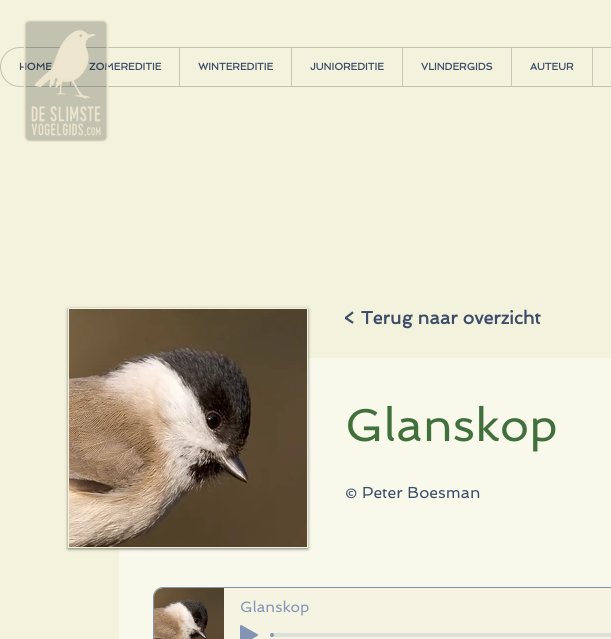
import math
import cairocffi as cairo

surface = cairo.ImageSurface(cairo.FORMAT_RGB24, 611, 639)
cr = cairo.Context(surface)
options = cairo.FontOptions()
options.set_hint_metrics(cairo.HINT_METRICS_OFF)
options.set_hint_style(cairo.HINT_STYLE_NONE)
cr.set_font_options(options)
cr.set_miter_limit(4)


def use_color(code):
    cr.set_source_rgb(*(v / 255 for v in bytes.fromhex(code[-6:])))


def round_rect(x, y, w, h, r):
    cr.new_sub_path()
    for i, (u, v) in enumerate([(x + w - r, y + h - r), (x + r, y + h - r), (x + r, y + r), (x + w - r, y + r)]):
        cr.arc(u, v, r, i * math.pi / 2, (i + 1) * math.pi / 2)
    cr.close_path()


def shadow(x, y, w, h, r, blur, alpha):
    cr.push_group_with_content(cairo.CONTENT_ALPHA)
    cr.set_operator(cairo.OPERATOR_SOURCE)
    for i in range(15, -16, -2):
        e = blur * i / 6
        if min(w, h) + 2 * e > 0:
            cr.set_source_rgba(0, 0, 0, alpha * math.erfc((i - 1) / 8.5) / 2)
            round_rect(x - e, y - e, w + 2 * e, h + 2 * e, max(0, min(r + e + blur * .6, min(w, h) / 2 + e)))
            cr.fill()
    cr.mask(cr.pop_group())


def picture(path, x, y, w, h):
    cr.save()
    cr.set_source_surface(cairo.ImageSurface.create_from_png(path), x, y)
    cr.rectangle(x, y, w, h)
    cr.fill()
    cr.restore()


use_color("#f3f2dc")
cr.paint()
round_rect(0.5, 47.5, 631, 39, 19.5)
use_color("#c2c2b0")
cr.set_line_width(1)
cr.stroke()
cr.select_font_face("Spinnaker", cairo.FONT_SLANT_NORMAL, cairo.FONT_WEIGHT_BOLD)
cr.set_font_size(10)
use_color("#3d4d69")
cr.move_to(19, 70)
cr.show_text("HOME")
use_color("#c7c6b9")
cr.rectangle(70, 79, 1, 7)
cr.fill()
use_color("#3d4d69")
cr.move_to(89, 70)
cr.show_text("ZOMEREDITIE")
cr.set_source_rgba(0, 0, 0, 0.2)
round_rect(25, 20, 82, 121, 5)
cr.fill()
picture("img1.png", 23, 20, 86, 122)
use_color("#c7c6b9")
cr.rectangle(179, 48, 1, 38)
cr.fill()
use_color("#3d4d69")
cr.move_to(198, 70)
cr.show_text("WINTEREDITIE")
use_color("#c7c6b9")
cr.rectangle(291, 48, 1, 38)
cr.fill()
use_color("#3d4d69")
cr.move_to(310, 70)
cr.show_text("JUNIOREDITIE")
use_color("#c7c6b9")
cr.rectangle(402, 48, 1, 38)
cr.fill()
use_color("#3d4d69")
cr.move_to(421, 70)
cr.show_text("VLINDERGIDS")
use_color("#c7c6b9")
cr.rectangle(511, 48, 1, 38)
cr.fill()
use_color("#3d4d69")
cr.move_to(530, 70)
cr.show_text("AUTEUR")
use_color("#c7c6b9")
cr.rectangle(592, 48, 1, 38)
cr.fill()
use_color("#f8f8eb")
cr.rectangle(119, 358, 492, 281)
cr.fill()
use_color("#000000")
shadow(68, 309, 240, 240, 0, 1.5, 0.5)
use_color("#f3f2dc")
cr.rectangle(68, 308, 240, 240)
cr.fill()
picture("img2.png", 69, 309, 238, 238)
cr.set_font_size(18)
use_color("#3d4d69")
cr.move_to(344, 324)
cr.show_text("< Terug naar overzicht")
cr.select_font_face("Spinnaker")
cr.set_font_size(46)
use_color("#41703d")
cr.move_to(345, 441)
cr.show_text("Glanskop")
cr.set_font_size(16)
use_color("#3d4d69")
cr.move_to(345, 498)
cr.show_text("© Peter Boesman")
use_color("#f5f4e2")
round_rect(153.5, 587.5, 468, 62, 9.5)
cr.fill_preserve()
use_color("#8394b5")
cr.stroke()
picture("img3.png", 154, 588, 70, 51)
cr.set_font_size(15)
cr.move_to(240, 612)
cr.show_text("Glanskop")
picture("img4.png", 240, 625, 18, 14)
use_color("#dee1d9")
round_rect(272, 633, 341, 4, 2)
cr.fill()
use_color("#8394b5")
cr.arc(272, 635, 2, 0, 2 * math.pi)
cr.fill()
surface.write_to_png("result.png")
